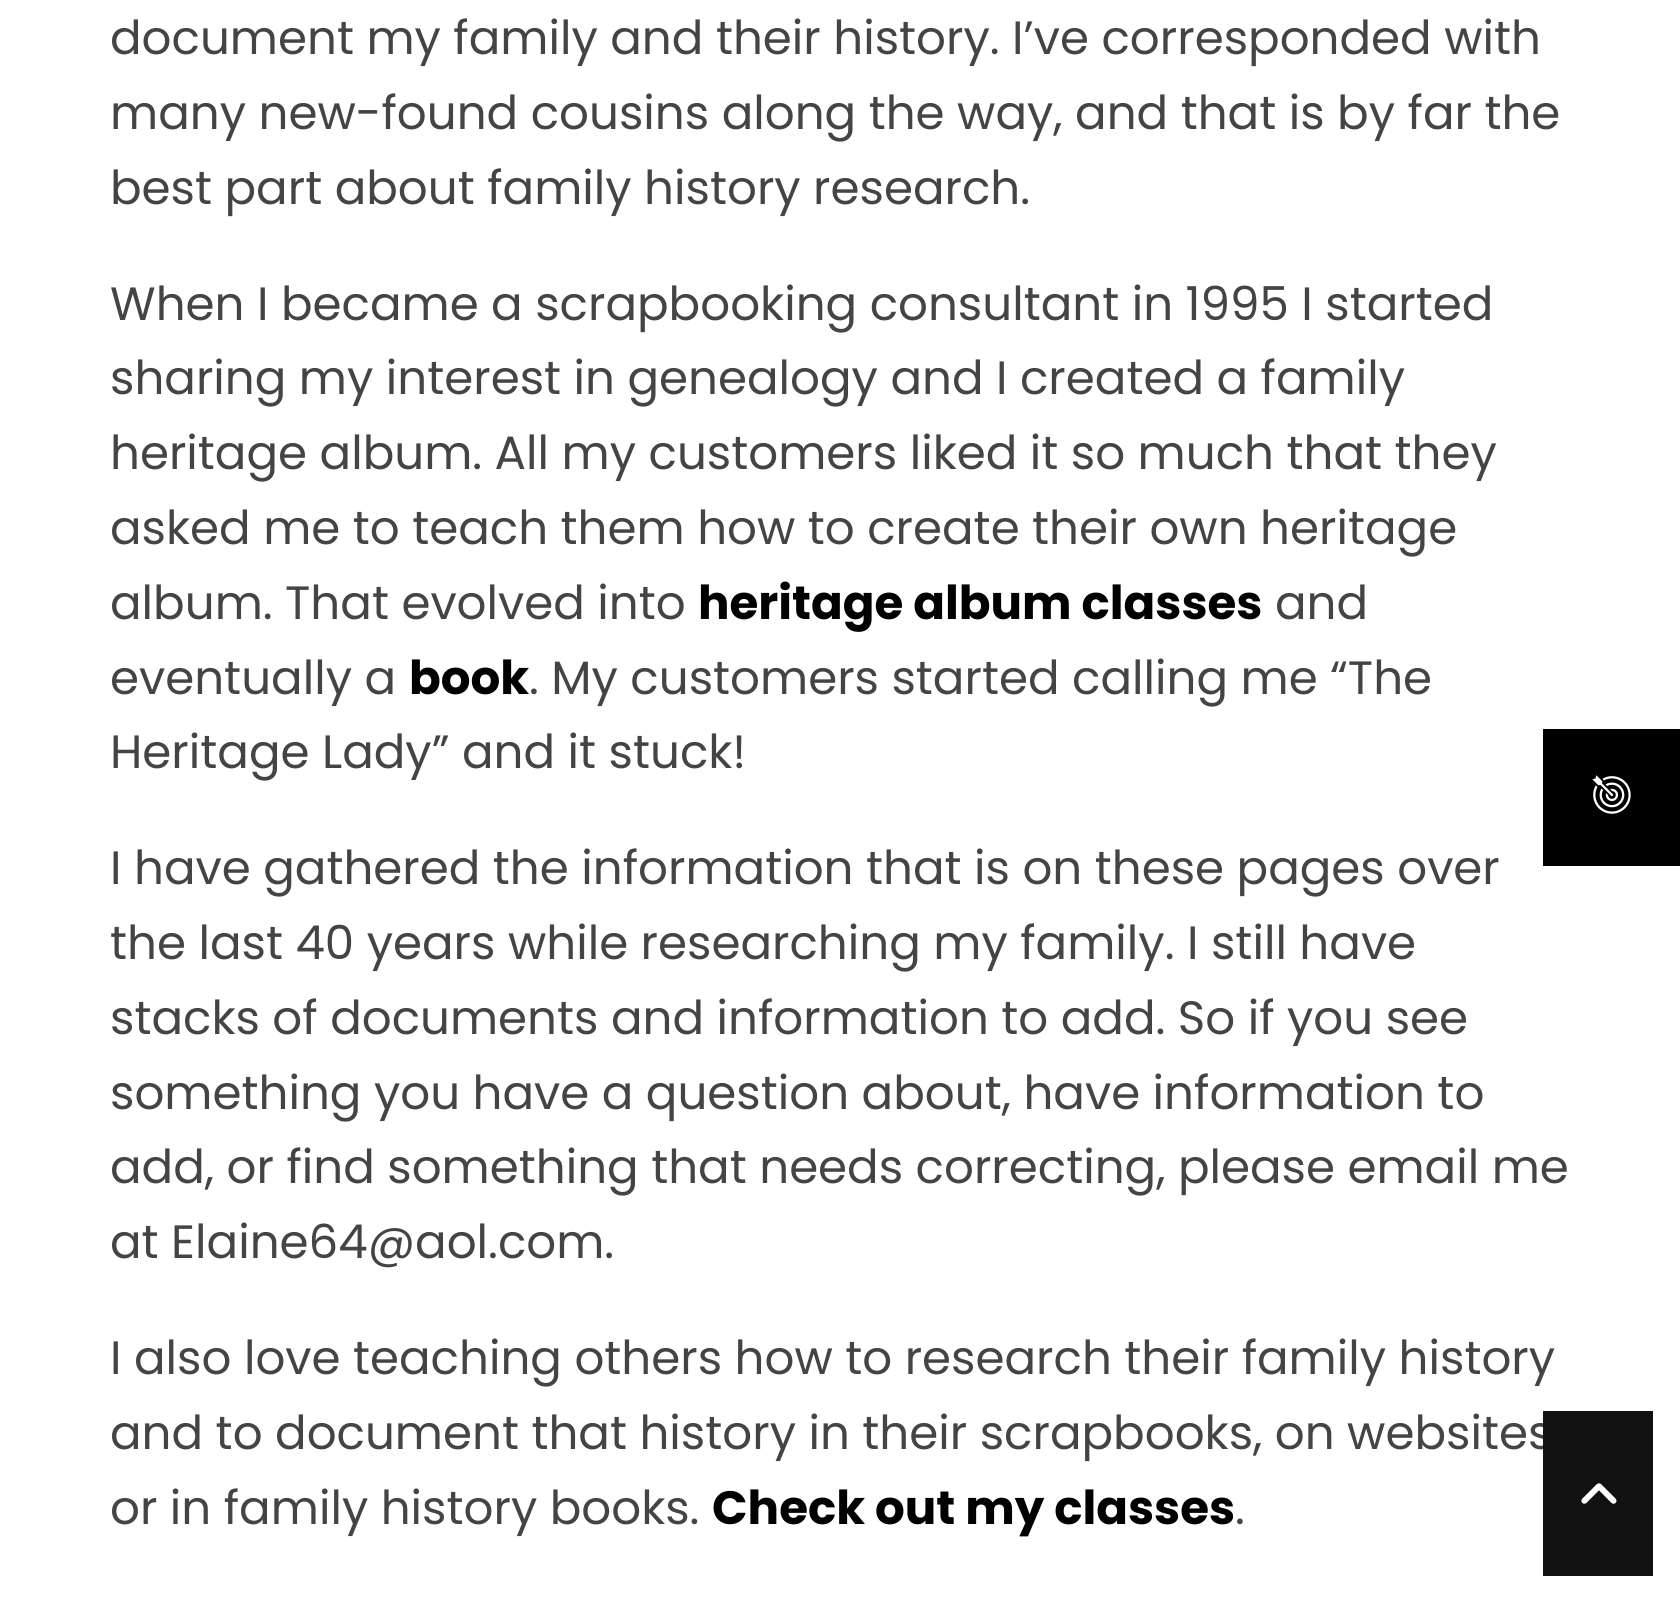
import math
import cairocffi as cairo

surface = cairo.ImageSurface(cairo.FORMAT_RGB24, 1680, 1602)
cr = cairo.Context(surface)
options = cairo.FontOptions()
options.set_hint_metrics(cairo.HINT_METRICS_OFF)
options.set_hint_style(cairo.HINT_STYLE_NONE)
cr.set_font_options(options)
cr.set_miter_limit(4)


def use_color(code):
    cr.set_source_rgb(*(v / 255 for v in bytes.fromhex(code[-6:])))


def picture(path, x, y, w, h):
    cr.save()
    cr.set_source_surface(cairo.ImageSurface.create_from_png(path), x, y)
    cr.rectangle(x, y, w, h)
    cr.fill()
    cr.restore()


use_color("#ffffff")
cr.paint()
cr.select_font_face("Poppins")
cr.set_font_size(46.75)
use_color("#444444")
cr.move_to(110, 54)
cr.show_text("document my family and their history. I’ve corresponded with")
cr.move_to(110, 129)
cr.show_text("many new-found cousins along the way, and that is by far the")
cr.move_to(110, 204)
cr.show_text("best part about family history research.")
cr.move_to(110, 320)
cr.show_text("When I became a scrapbooking consultant in 1995 I started")
cr.move_to(110, 394)
cr.show_text("sharing my interest in genealogy and I created a family")
cr.move_to(110, 469)
cr.show_text("heritage album. All my customers liked it so much that they")
cr.move_to(110, 544)
cr.show_text("asked me to teach them how to create their own heritage")
cr.move_to(110, 619)
cr.show_text("album. That evolved into")
cr.select_font_face("Poppins", cairo.FONT_SLANT_NORMAL, cairo.FONT_WEIGHT_BOLD)
use_color("#000000")
cr.move_to(698, 619)
cr.show_text("heritage album classes")
cr.select_font_face("Poppins")
use_color("#444444")
cr.move_to(1275, 619)
cr.show_text("and")
cr.move_to(110, 694)
cr.show_text("eventually a")
cr.select_font_face("Poppins", cairo.FONT_SLANT_NORMAL, cairo.FONT_WEIGHT_BOLD)
use_color("#000000")
cr.move_to(409, 694)
cr.show_text("book")
cr.select_font_face("Poppins")
use_color("#444444")
cr.move_to(529, 694)
cr.show_text(". My customers started calling me “The")
cr.move_to(110, 768)
cr.show_text("Heritage Lady” and it stuck!")
cr.move_to(110, 884)
cr.show_text("I have gathered the information that is on these pages over")
cr.move_to(110, 959)
cr.show_text("the last 40 years while researching my family. I still have")
cr.move_to(110, 1034)
cr.show_text("stacks of documents and information to add. So if you see")
cr.move_to(110, 1109)
cr.show_text("something you have a question about, have information to")
cr.move_to(110, 1183)
cr.show_text("add, or find something that needs correcting, please email me")
cr.move_to(110, 1258)
cr.show_text("at Elaine64@aol.com.")
cr.move_to(110, 1374)
cr.show_text("I also love teaching others how to research their family history")
cr.move_to(110, 1449)
cr.show_text("and to document that history in their scrapbooks, on websites")
cr.move_to(110, 1524)
cr.show_text("or in family history books.")
cr.select_font_face("Poppins", cairo.FONT_SLANT_NORMAL, cairo.FONT_WEIGHT_BOLD)
use_color("#000000")
cr.move_to(712, 1524)
cr.show_text("Check out my classes")
cr.select_font_face("Poppins")
use_color("#444444")
cr.move_to(1235, 1524)
cr.show_text(".")
use_color("#000000")
cr.rectangle(1543, 729, 137, 137)
cr.fill()
picture("img1.png", 1592, 775, 39, 39)
use_color("#111111")
cr.rectangle(1543, 1411, 110, 165)
cr.fill()
picture("img2.png", 1581, 1483, 36, 21)
surface.write_to_png("result.png")
